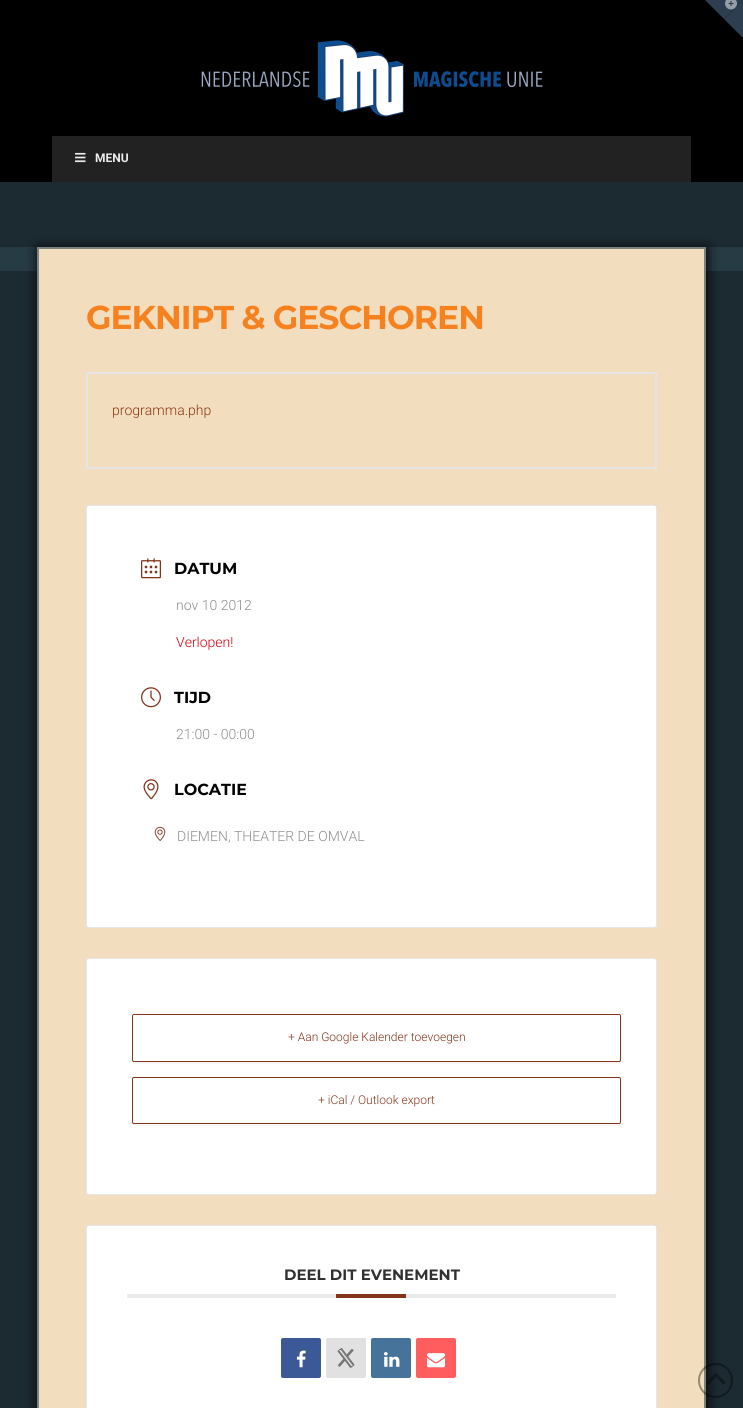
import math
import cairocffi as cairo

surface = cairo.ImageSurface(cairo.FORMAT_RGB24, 743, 1408)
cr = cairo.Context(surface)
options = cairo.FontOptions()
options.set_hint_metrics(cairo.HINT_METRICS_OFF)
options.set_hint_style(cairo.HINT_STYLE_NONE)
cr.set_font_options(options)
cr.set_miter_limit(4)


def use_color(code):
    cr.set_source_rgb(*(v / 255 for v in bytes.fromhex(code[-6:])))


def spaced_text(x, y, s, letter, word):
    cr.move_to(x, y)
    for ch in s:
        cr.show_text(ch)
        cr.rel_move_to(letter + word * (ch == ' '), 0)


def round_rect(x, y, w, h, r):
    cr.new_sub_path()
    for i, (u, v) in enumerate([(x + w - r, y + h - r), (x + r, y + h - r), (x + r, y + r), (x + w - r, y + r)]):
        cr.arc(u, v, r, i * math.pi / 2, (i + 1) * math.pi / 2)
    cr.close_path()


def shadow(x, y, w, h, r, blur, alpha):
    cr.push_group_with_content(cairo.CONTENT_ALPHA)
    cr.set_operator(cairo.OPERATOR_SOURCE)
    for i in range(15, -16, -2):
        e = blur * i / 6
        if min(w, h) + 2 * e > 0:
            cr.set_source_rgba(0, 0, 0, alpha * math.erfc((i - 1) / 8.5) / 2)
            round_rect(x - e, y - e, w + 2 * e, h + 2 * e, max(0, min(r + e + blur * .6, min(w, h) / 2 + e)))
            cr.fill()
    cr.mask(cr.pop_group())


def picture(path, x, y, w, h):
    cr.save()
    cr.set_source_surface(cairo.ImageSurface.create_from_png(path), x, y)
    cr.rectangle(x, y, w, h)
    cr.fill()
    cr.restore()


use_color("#000000")
cr.paint()
use_color("#1c2a31")
cr.rectangle(0, 271, 743, 1137)
cr.fill()
use_color("#2c3e50")
cr.new_path()
cr.move_to(705, 0)
cr.line_to(743, 0)
cr.line_to(724, 19)
cr.close_path()
cr.fill()
cr.new_path()
cr.move_to(743, 0)
cr.line_to(743, 38)
cr.line_to(724, 19)
cr.close_path()
cr.fill()
picture("img1.png", 725, 0, 12, 10)
picture("img2.png", 201, 40, 342, 77)
use_color("#222222")
cr.rectangle(52, 136, 639, 46)
cr.fill()
picture("img3.png", 75, 152, 11, 11)
cr.select_font_face("Roboto", cairo.FONT_SLANT_NORMAL, cairo.FONT_WEIGHT_BOLD)
cr.set_font_size(12)
use_color("#eeeeee")
cr.move_to(95, 162)
cr.show_text("MENU")
use_color("#1c2a31")
cr.rectangle(0, 182, 743, 65)
cr.fill()
use_color("#273b45")
cr.rectangle(0, 247, 743, 24)
cr.fill()
use_color("#000000")
shadow(38, 248, 669, 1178, 0, 6, 1)
use_color("#f2ddbf")
cr.rectangle(38, 248, 667, 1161)
cr.fill_preserve()
use_color("#7c827e")
cr.stroke()
cr.select_font_face("Montserrat", cairo.FONT_SLANT_NORMAL, cairo.FONT_WEIGHT_BOLD)
cr.set_font_size(33)
use_color("#f5821f")
spaced_text(86, 329, "GEKNIPT & GESCHOREN", -1, 0)
cr.rectangle(87, 373, 569, 95)
use_color("#e5e5e5")
cr.stroke()
cr.select_font_face("Roboto Light")
cr.set_font_size(14)
use_color("#8c3714")
cr.move_to(112, 415)
cr.show_text("programma.php")
use_color("#ffffff")
round_rect(86.5, 505.5, 570, 422, 2.5)
cr.fill_preserve()
use_color("#e6e7e8")
cr.set_line_width(1)
cr.stroke()
picture("img4.png", 141, 558, 20, 21)
cr.select_font_face("Montserrat", cairo.FONT_SLANT_NORMAL, cairo.FONT_WEIGHT_BOLD)
cr.set_font_size(16)
use_color("#000000")
cr.move_to(174, 574)
cr.show_text("DATUM")
cr.select_font_face("Roboto Light")
cr.set_font_size(14)
use_color("#8d8d8d")
cr.move_to(176, 610)
cr.show_text("nov 10 2012")
use_color("#d8000c")
cr.move_to(176, 647)
cr.show_text("Verlopen!")
picture("img5.png", 141, 687, 20, 21)
cr.select_font_face("Montserrat", cairo.FONT_SLANT_NORMAL, cairo.FONT_WEIGHT_BOLD)
cr.set_font_size(16)
use_color("#000000")
cr.move_to(174, 703)
cr.show_text("TIJD")
cr.select_font_face("Roboto Light")
cr.set_font_size(14)
use_color("#8d8d8d")
cr.move_to(176, 739)
cr.show_text("21:00 - 00:00")
picture("img6.png", 143, 779, 16, 21)
cr.select_font_face("Montserrat", cairo.FONT_SLANT_NORMAL, cairo.FONT_WEIGHT_BOLD)
cr.set_font_size(16)
use_color("#000000")
cr.move_to(174, 795)
cr.show_text("LOCATIE")
picture("img7.png", 154, 826, 12, 15)
cr.select_font_face("Roboto Light")
cr.set_font_size(14)
use_color("#8d8d8d")
cr.move_to(177, 841)
cr.show_text("DIEMEN, THEATER DE OMVAL")
use_color("#ffffff")
round_rect(86.5, 958.5, 570, 236, 2.5)
cr.fill_preserve()
use_color("#e6e7e8")
cr.stroke()
use_color("#f7f7f7")
cr.new_path()
cr.move_to(132, 1060)
cr.curve_to(132, 1062, 132, 1064, 134, 1064)
cr.line_to(619, 1064)
cr.curve_to(621, 1064, 621, 1062, 621, 1060)
cr.curve_to(621, 1061, 620, 1062, 619, 1062)
cr.line_to(134, 1062)
cr.curve_to(133, 1062, 132, 1061, 132, 1060)
cr.close_path()
cr.fill()
round_rect(132.5, 1014.5, 488, 47, 1.5)
use_color("#82331a")
cr.stroke()
cr.set_font_size(12)
cr.move_to(288, 1041)
cr.show_text("+ Aan Google Kalender toevoegen")
use_color("#f7f7f7")
cr.new_path()
cr.move_to(132, 1122)
cr.curve_to(132, 1124, 132, 1126, 134, 1126)
cr.line_to(619, 1126)
cr.curve_to(621, 1126, 621, 1124, 621, 1122)
cr.curve_to(621, 1123, 620, 1124, 619, 1124)
cr.line_to(134, 1124)
cr.curve_to(133, 1124, 132, 1123, 132, 1122)
cr.close_path()
cr.fill()
round_rect(132.5, 1077.5, 488, 46, 1.5)
use_color("#82331a")
cr.stroke()
cr.move_to(318, 1104)
cr.show_text("+ iCal / Outlook export")
use_color("#ffffff")
round_rect(86.5, 1225.5, 570, 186, 2.5)
cr.fill_preserve()
use_color("#e6e7e8")
cr.stroke()
use_color("#ebebeb")
cr.rectangle(127, 1294, 489, 4)
cr.fill()
cr.select_font_face("Montserrat", cairo.FONT_SLANT_NORMAL, cairo.FONT_WEIGHT_BOLD)
cr.set_font_size(15)
use_color("#313131")
cr.move_to(284, 1280)
cr.show_text("DEEL DIT EVENEMENT")
use_color("#82331a")
cr.rectangle(336, 1294, 70, 4)
cr.fill()
use_color("#3b5996")
round_rect(281, 1338, 40, 40, 2)
cr.fill()
picture("img8.png", 296, 1350, 10, 18)
use_color("#e1e1e1")
round_rect(326, 1338, 40, 40, 2)
cr.fill()
picture("img9.png", 337, 1348, 18, 20)
use_color("#457399")
round_rect(371, 1338, 40, 40, 2)
cr.fill()
picture("img10.png", 384, 1352, 16, 15)
use_color("#ff5d5e")
round_rect(416, 1338, 40, 40, 2)
cr.fill()
picture("img11.png", 427, 1353, 18, 15)
cr.arc(715.5, 1380.5, 16.5, 0, 2 * math.pi)
cr.set_source_rgba(0, 0, 0, 0.38)
cr.set_line_width(2)
cr.stroke()
picture("img12.png", 707, 1373, 19, 12)
surface.write_to_png("result.png")
